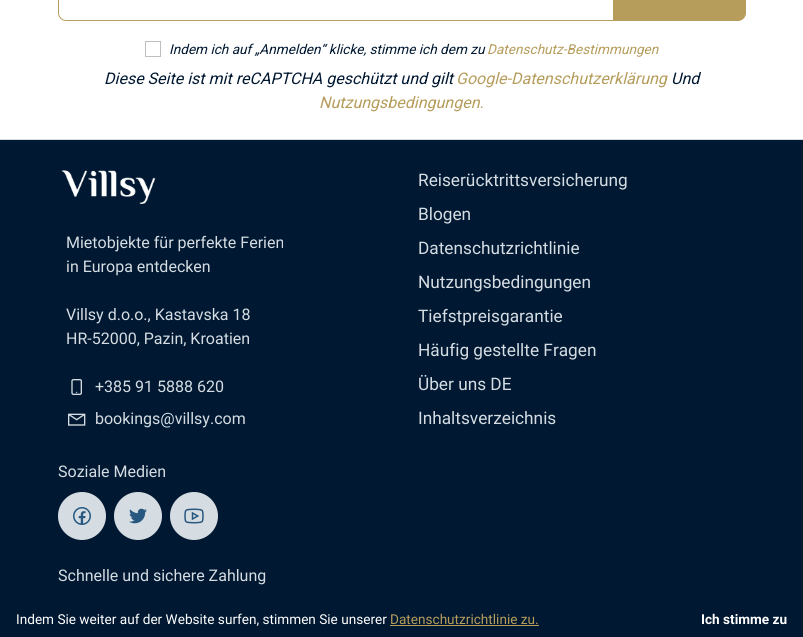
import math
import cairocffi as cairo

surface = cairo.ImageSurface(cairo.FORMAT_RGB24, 803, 637)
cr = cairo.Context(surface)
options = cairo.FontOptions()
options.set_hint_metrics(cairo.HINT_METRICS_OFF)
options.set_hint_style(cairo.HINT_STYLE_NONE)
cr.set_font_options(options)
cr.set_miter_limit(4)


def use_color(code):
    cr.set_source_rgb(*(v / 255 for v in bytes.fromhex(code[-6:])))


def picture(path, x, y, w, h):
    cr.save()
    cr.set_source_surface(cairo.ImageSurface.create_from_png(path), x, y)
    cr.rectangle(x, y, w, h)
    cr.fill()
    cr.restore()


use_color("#001831")
cr.paint()
use_color("#ffffff")
cr.rectangle(0, 0, 803, 139)
cr.fill()
use_color("#d5dde3")
cr.rectangle(0, 139, 803, 1)
cr.fill()
cr.new_path()
cr.move_to(66, -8.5)
cr.line_to(613.5, -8.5)
cr.line_to(613.5, 20.5)
cr.line_to(66, 20.5)
cr.curve_to(62, 20.5, 58.5, 17, 58.5, 13)
cr.line_to(58.5, -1)
cr.curve_to(58.5, -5, 62, -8.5, 66, -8.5)
cr.close_path()
use_color("#b69d5c")
cr.set_line_width(1)
cr.stroke()
cr.new_path()
cr.move_to(613.5, -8.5)
cr.line_to(738, -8.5)
cr.curve_to(742, -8.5, 745.5, -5, 745.5, -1)
cr.line_to(745.5, 13)
cr.curve_to(745.5, 17, 742, 20.5, 738, 20.5)
cr.line_to(613.5, 20.5)
cr.close_path()
cr.fill_preserve()
cr.stroke()
cr.rectangle(145.5, 41.5, 15, 15)
use_color("#bfbfbf")
cr.stroke()
cr.select_font_face("Roboto", cairo.FONT_SLANT_ITALIC)
cr.set_font_size(13.6)
use_color("#001831")
cr.move_to(169, 54)
cr.show_text("Indem ich auf „Anmelden“ klicke, stimme ich dem zu")
use_color("#b69d5c")
cr.move_to(487, 54)
cr.show_text("Datenschutz-Bestimmungen")
cr.set_font_size(16)
use_color("#001831")
cr.move_to(104, 84)
cr.show_text("Diese Seite ist mit reCAPTCHA geschützt und gilt")
use_color("#b69d5c")
cr.move_to(456, 84)
cr.show_text("Google-Datenschutzerklärung")
use_color("#001831")
cr.move_to(671, 84)
cr.show_text("Und")
use_color("#b69d5c")
cr.move_to(319, 108)
cr.show_text("Nutzungsbedingungen.")
picture("img1.png", 61, 170, 95, 34)
cr.select_font_face("Roboto")
use_color("#d5dde3")
cr.move_to(66, 248)
cr.show_text("Mietobjekte für perfekte Ferien")
cr.move_to(66, 272)
cr.show_text("in Europa entdecken")
cr.move_to(66, 320)
cr.show_text("Villsy d.o.o., Kastavska 18")
cr.move_to(66, 344)
cr.show_text("HR-52000, Pazin, Kroatien")
picture("img2.png", 71, 379, 11, 16)
cr.move_to(95, 392)
cr.show_text("+385 91 5888 620")
picture("img3.png", 68, 413, 18, 13)
cr.move_to(95, 424)
cr.show_text("bookings@villsy.com")
cr.set_font_size(17.25)
cr.move_to(418, 186)
cr.show_text("Reiserücktrittsversicherung")
cr.move_to(418, 220)
cr.show_text("Blogen")
cr.move_to(418, 254)
cr.show_text("Datenschutzrichtlinie")
cr.move_to(418, 288)
cr.show_text("Nutzungsbedingungen")
cr.move_to(418, 322)
cr.show_text("Tiefstpreisgarantie")
cr.move_to(418, 356)
cr.show_text("Häufig gestellte Fragen")
cr.move_to(418, 390)
cr.show_text("Über uns DE")
cr.move_to(418, 424)
cr.show_text("Inhaltsverzeichnis")
cr.set_font_size(16)
cr.move_to(58, 477)
cr.show_text("Soziale Medien")
cr.new_path()
cr.arc(82, 516, 24, 0, 2 * math.pi)
cr.fill()
picture("img4.png", 73, 507, 18, 18)
cr.arc(138, 516, 24, 0, 2 * math.pi)
cr.fill()
picture("img5.png", 129, 508, 18, 16)
cr.arc(194, 516, 24, 0, 2 * math.pi)
cr.fill()
picture("img6.png", 184, 508, 20, 16)
cr.move_to(58, 581)
cr.show_text("Schnelle und sichere Zahlung")
cr.set_font_size(13.6)
use_color("#ffffff")
cr.move_to(16, 624)
cr.show_text("Indem Sie weiter auf der Website surfen, stimmen Sie unserer")
use_color("#b69d5c")
cr.move_to(390, 624)
cr.show_text("Datenschutzrichtlinie zu.")
cr.rectangle(390, 625, 149, 1)
cr.fill()
cr.select_font_face("Roboto", cairo.FONT_SLANT_NORMAL, cairo.FONT_WEIGHT_BOLD)
use_color("#ffffff")
cr.move_to(701, 624)
cr.show_text("Ich stimme zu")
surface.write_to_png("result.png")
